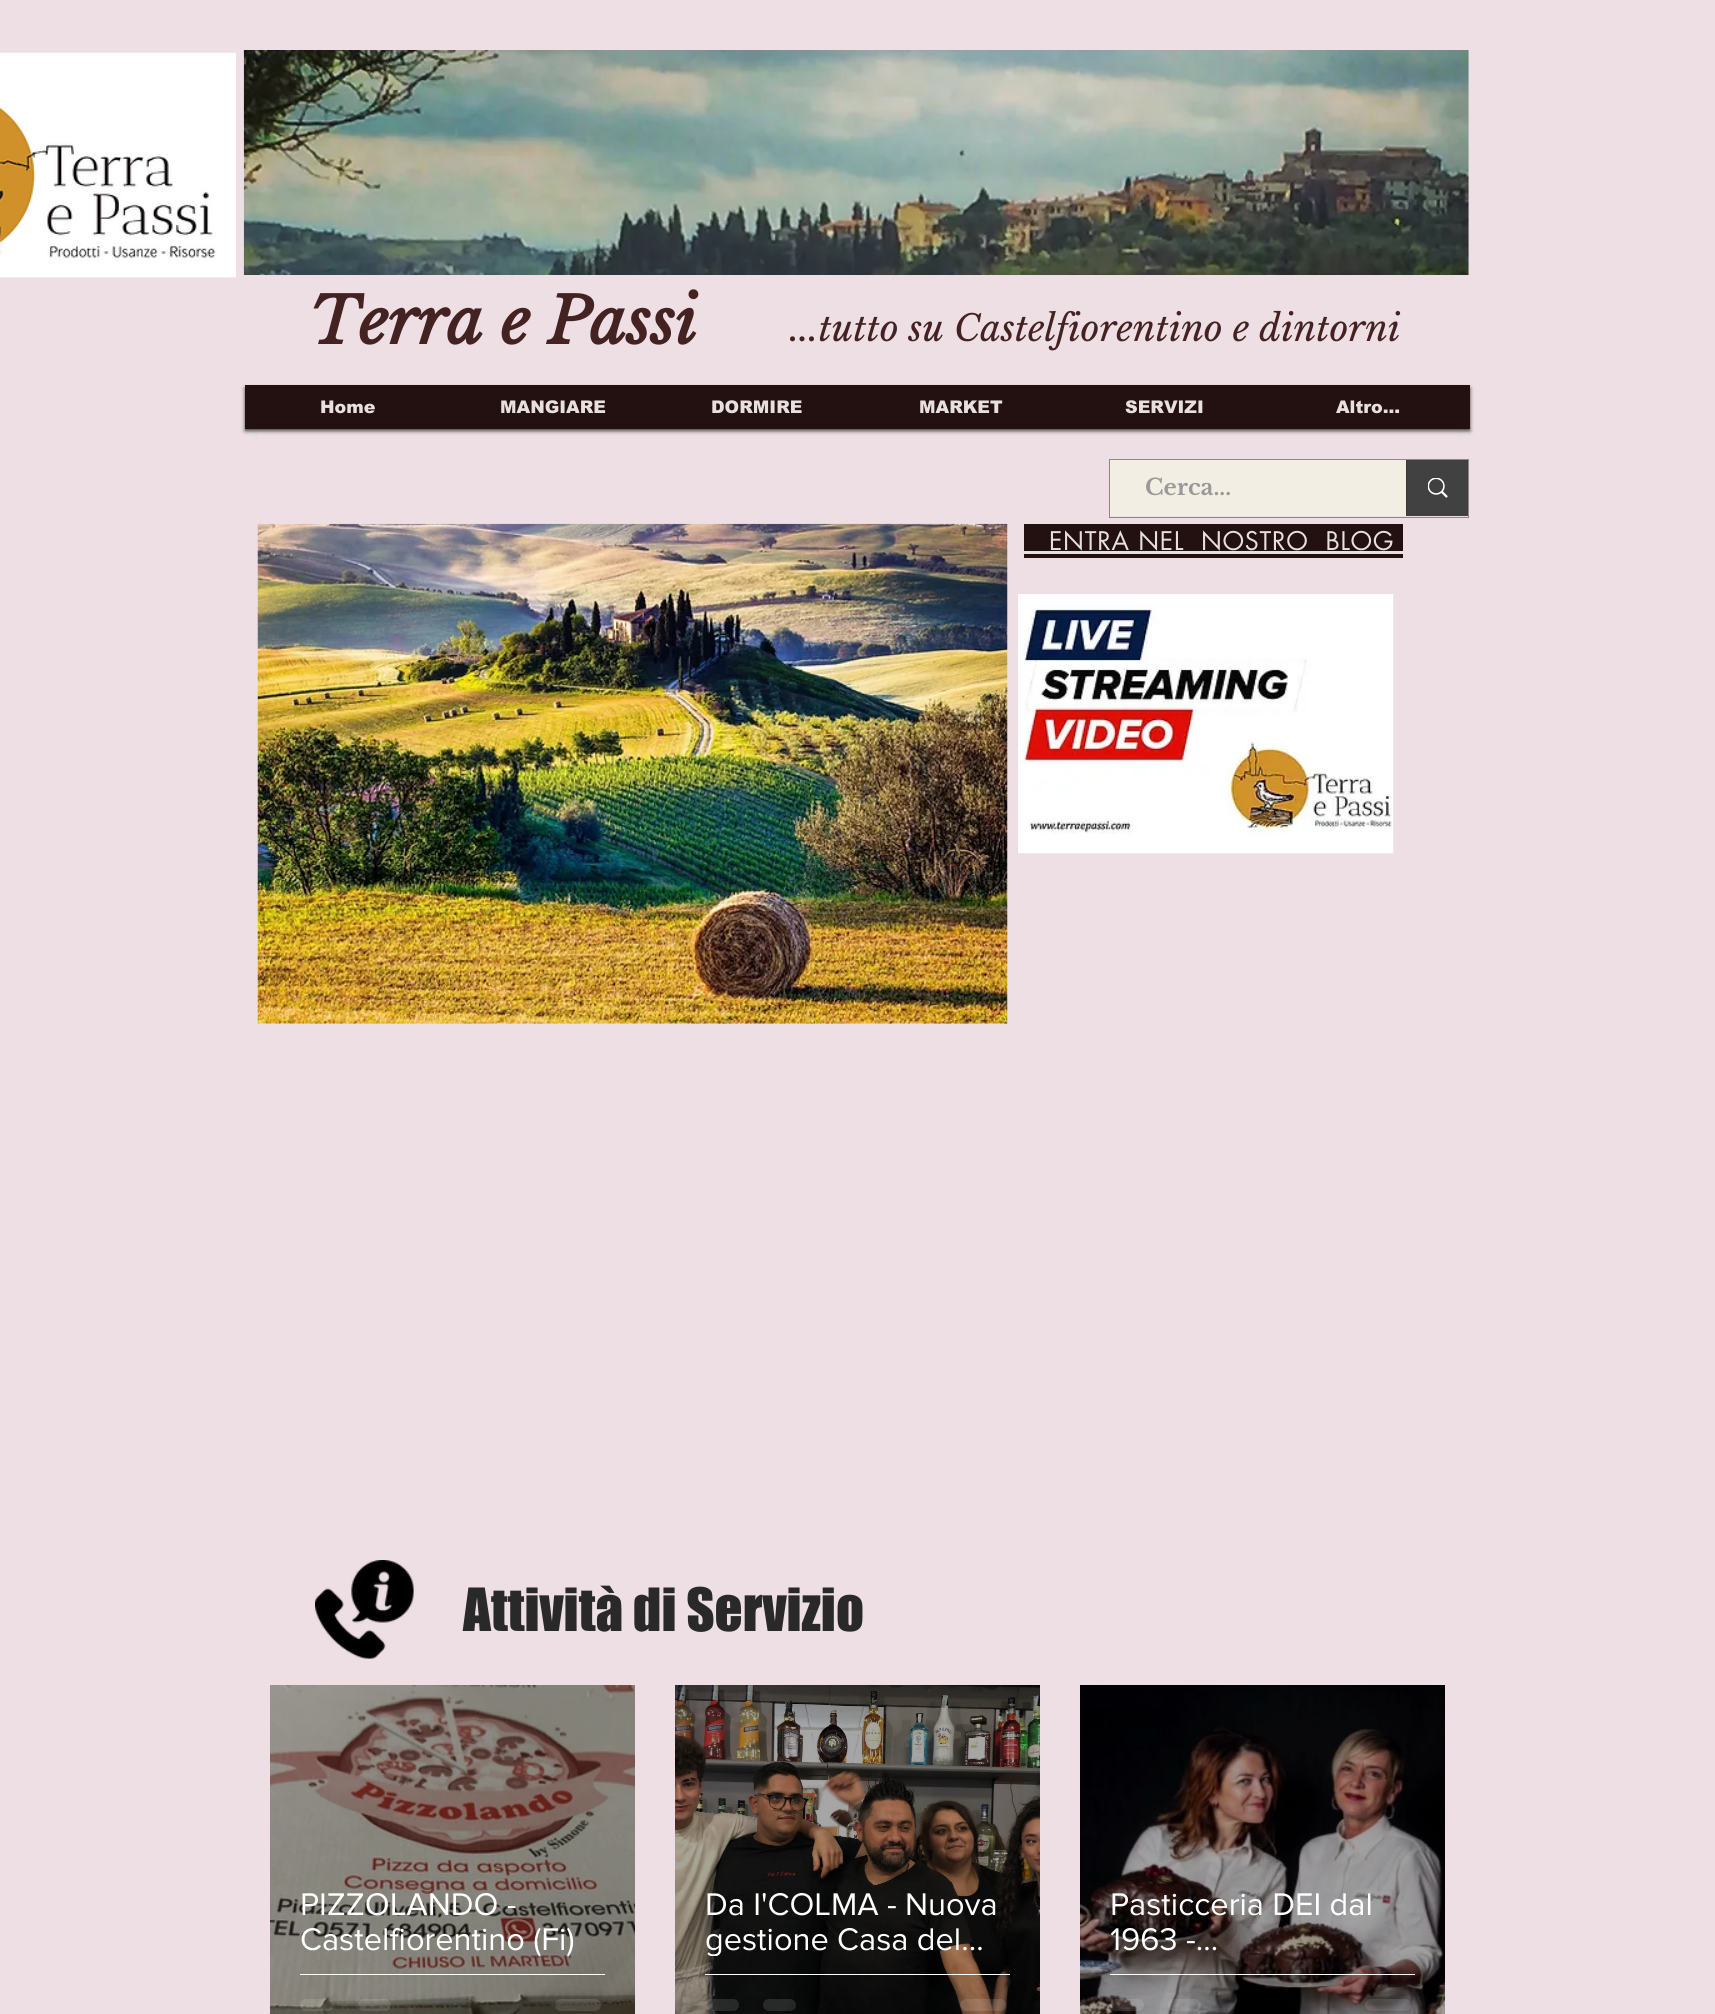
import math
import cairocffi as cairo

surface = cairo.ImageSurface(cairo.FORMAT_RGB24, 1715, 2014)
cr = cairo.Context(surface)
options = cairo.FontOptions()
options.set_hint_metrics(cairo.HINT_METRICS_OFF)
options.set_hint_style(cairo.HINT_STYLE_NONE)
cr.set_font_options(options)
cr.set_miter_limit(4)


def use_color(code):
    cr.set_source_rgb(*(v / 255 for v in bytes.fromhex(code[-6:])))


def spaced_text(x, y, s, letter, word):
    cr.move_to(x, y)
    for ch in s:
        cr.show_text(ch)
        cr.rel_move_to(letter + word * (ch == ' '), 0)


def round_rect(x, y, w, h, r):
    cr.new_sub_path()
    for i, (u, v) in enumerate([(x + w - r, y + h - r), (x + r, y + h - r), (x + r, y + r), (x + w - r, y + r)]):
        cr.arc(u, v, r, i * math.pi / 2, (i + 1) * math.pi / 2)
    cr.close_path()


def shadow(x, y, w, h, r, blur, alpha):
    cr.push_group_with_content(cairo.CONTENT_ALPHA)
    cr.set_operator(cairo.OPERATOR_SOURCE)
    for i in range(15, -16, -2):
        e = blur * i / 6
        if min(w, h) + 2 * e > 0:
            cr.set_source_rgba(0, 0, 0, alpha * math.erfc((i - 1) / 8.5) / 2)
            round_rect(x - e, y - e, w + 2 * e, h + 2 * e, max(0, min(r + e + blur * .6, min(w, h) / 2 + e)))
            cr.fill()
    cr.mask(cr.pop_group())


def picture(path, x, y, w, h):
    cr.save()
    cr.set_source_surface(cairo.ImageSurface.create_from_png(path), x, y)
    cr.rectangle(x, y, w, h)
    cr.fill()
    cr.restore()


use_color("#eddfe4")
cr.paint()
picture("img1.png", 0, 52, 236, 226)
picture("img2.png", 243, 50, 1226, 225)
cr.select_font_face("Libre Baskerville", cairo.FONT_SLANT_ITALIC, cairo.FONT_WEIGHT_BOLD)
cr.set_font_size(63.75)
use_color("#452222")
cr.move_to(309, 344)
cr.show_text("Terra e Passi")
cr.select_font_face("Libre Baskerville", cairo.FONT_SLANT_ITALIC)
cr.set_font_size(36.25)
cr.move_to(790, 341)
cr.show_text("...tutto su Castelfiorentino e dintorni")
use_color("#e8dfdf")
cr.new_path()
cr.move_to(245, 429)
cr.line_to(257.5, 429)
cr.line_to(257.5, 441)
cr.close_path()
cr.fill()
cr.new_path()
cr.move_to(1457.5, 429)
cr.line_to(1470, 429)
cr.line_to(1457.5, 441)
cr.close_path()
cr.fill()
use_color("#000000")
shadow(245, 388, 1225, 43, 0, 2, 0.7)
use_color("#231111")
cr.rectangle(245, 385, 1225, 44)
cr.fill()
cr.select_font_face("arial Black")
cr.set_font_size(17.5)
use_color("#e8dfdf")
cr.move_to(320, 413)
cr.show_text("Home")
cr.move_to(500, 413)
cr.show_text("MANGIARE")
cr.move_to(711, 413)
cr.show_text("DORMIRE")
cr.move_to(919, 413)
cr.show_text("MARKET")
cr.move_to(1125, 413)
cr.show_text("SERVIZI")
cr.move_to(1336, 413)
cr.show_text("Altro...")
cr.rectangle(1109.5, 459.5, 359, 58)
use_color("#8e8789")
cr.set_line_width(1)
cr.stroke()
use_color("#f2eee4")
cr.rectangle(1110, 460, 296, 56)
cr.fill()
cr.select_font_face("Libre Baskerville", cairo.FONT_SLANT_NORMAL, cairo.FONT_WEIGHT_BOLD)
cr.set_font_size(22.5)
use_color("#999999")
cr.move_to(1145, 495)
cr.show_text("Cerca...")
use_color("#414141")
cr.rectangle(1407, 460, 61, 56)
cr.fill()
use_color("#393939")
cr.rectangle(1406, 460, 1, 56)
cr.fill()
picture("img3.png", 1428, 478, 20, 20)
picture("img4.png", 257, 523, 751, 501)
use_color("#231111")
cr.rectangle(1024, 524, 379, 34)
cr.fill()
cr.select_font_face("futura")
cr.set_font_size(25)
use_color("#e8dfdf")
spaced_text(1049, 550, "ENTRA NEL  NOSTRO  BLOG", 0.75, 0)
cr.rectangle(1024, 551, 379, 3)
cr.fill()
picture("img5.png", 1018, 594, 376, 260)
picture("img6.png", 315, 1560, 99, 99)
cr.select_font_face("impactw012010")
cr.set_font_size(55)
use_color("#292929")
cr.move_to(463, 1631)
cr.show_text("Attività di Servizio")
picture("img7.png", 270, 1685, 365, 329)
cr.select_font_face("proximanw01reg")
cr.set_font_size(32.5)
use_color("#ffffff")
cr.move_to(300, 1915)
cr.show_text("PIZZOLANDO -")
cr.move_to(300, 1950)
cr.show_text("Castelfiorentino (Fi)")
cr.rectangle(300, 1974, 305, 1)
cr.fill()
cr.set_source_rgba(1, 1, 1, 0.12)
round_rect(300, 1999, 34, 12, 6)
cr.fill()
round_rect(358, 1999, 33, 12, 6)
cr.fill()
round_rect(555, 1999, 46, 12, 6)
cr.fill()
picture("img8.png", 675, 1685, 365, 329)
use_color("#ffffff")
cr.move_to(705, 1915)
cr.show_text("Da I'COLMA - Nuova")
cr.save()
cr.rectangle(705, 1886, 305, 70)
cr.clip()
cr.move_to(705, 1950)
cr.show_text("gestione Casa del…")
cr.restore()
cr.rectangle(705, 1974, 305, 1)
cr.fill()
cr.set_source_rgba(1, 1, 1, 0.12)
round_rect(705, 1999, 34, 12, 6)
cr.fill()
round_rect(763, 1999, 33, 12, 6)
cr.fill()
round_rect(960, 1999, 46, 12, 6)
cr.fill()
picture("img9.png", 1080, 1685, 365, 329)
use_color("#ffffff")
cr.move_to(1110, 1915)
cr.show_text("Pasticceria DEI dal")
cr.move_to(1110, 1950)
cr.show_text("1963 -…")
cr.rectangle(1110, 1974, 305, 1)
cr.fill()
cr.set_source_rgba(1, 1, 1, 0.12)
round_rect(1110, 1999, 34, 12, 6)
cr.fill()
round_rect(1168, 1999, 33, 12, 6)
cr.fill()
round_rect(1365, 1999, 46, 12, 6)
cr.fill()
surface.write_to_png("result.png")
